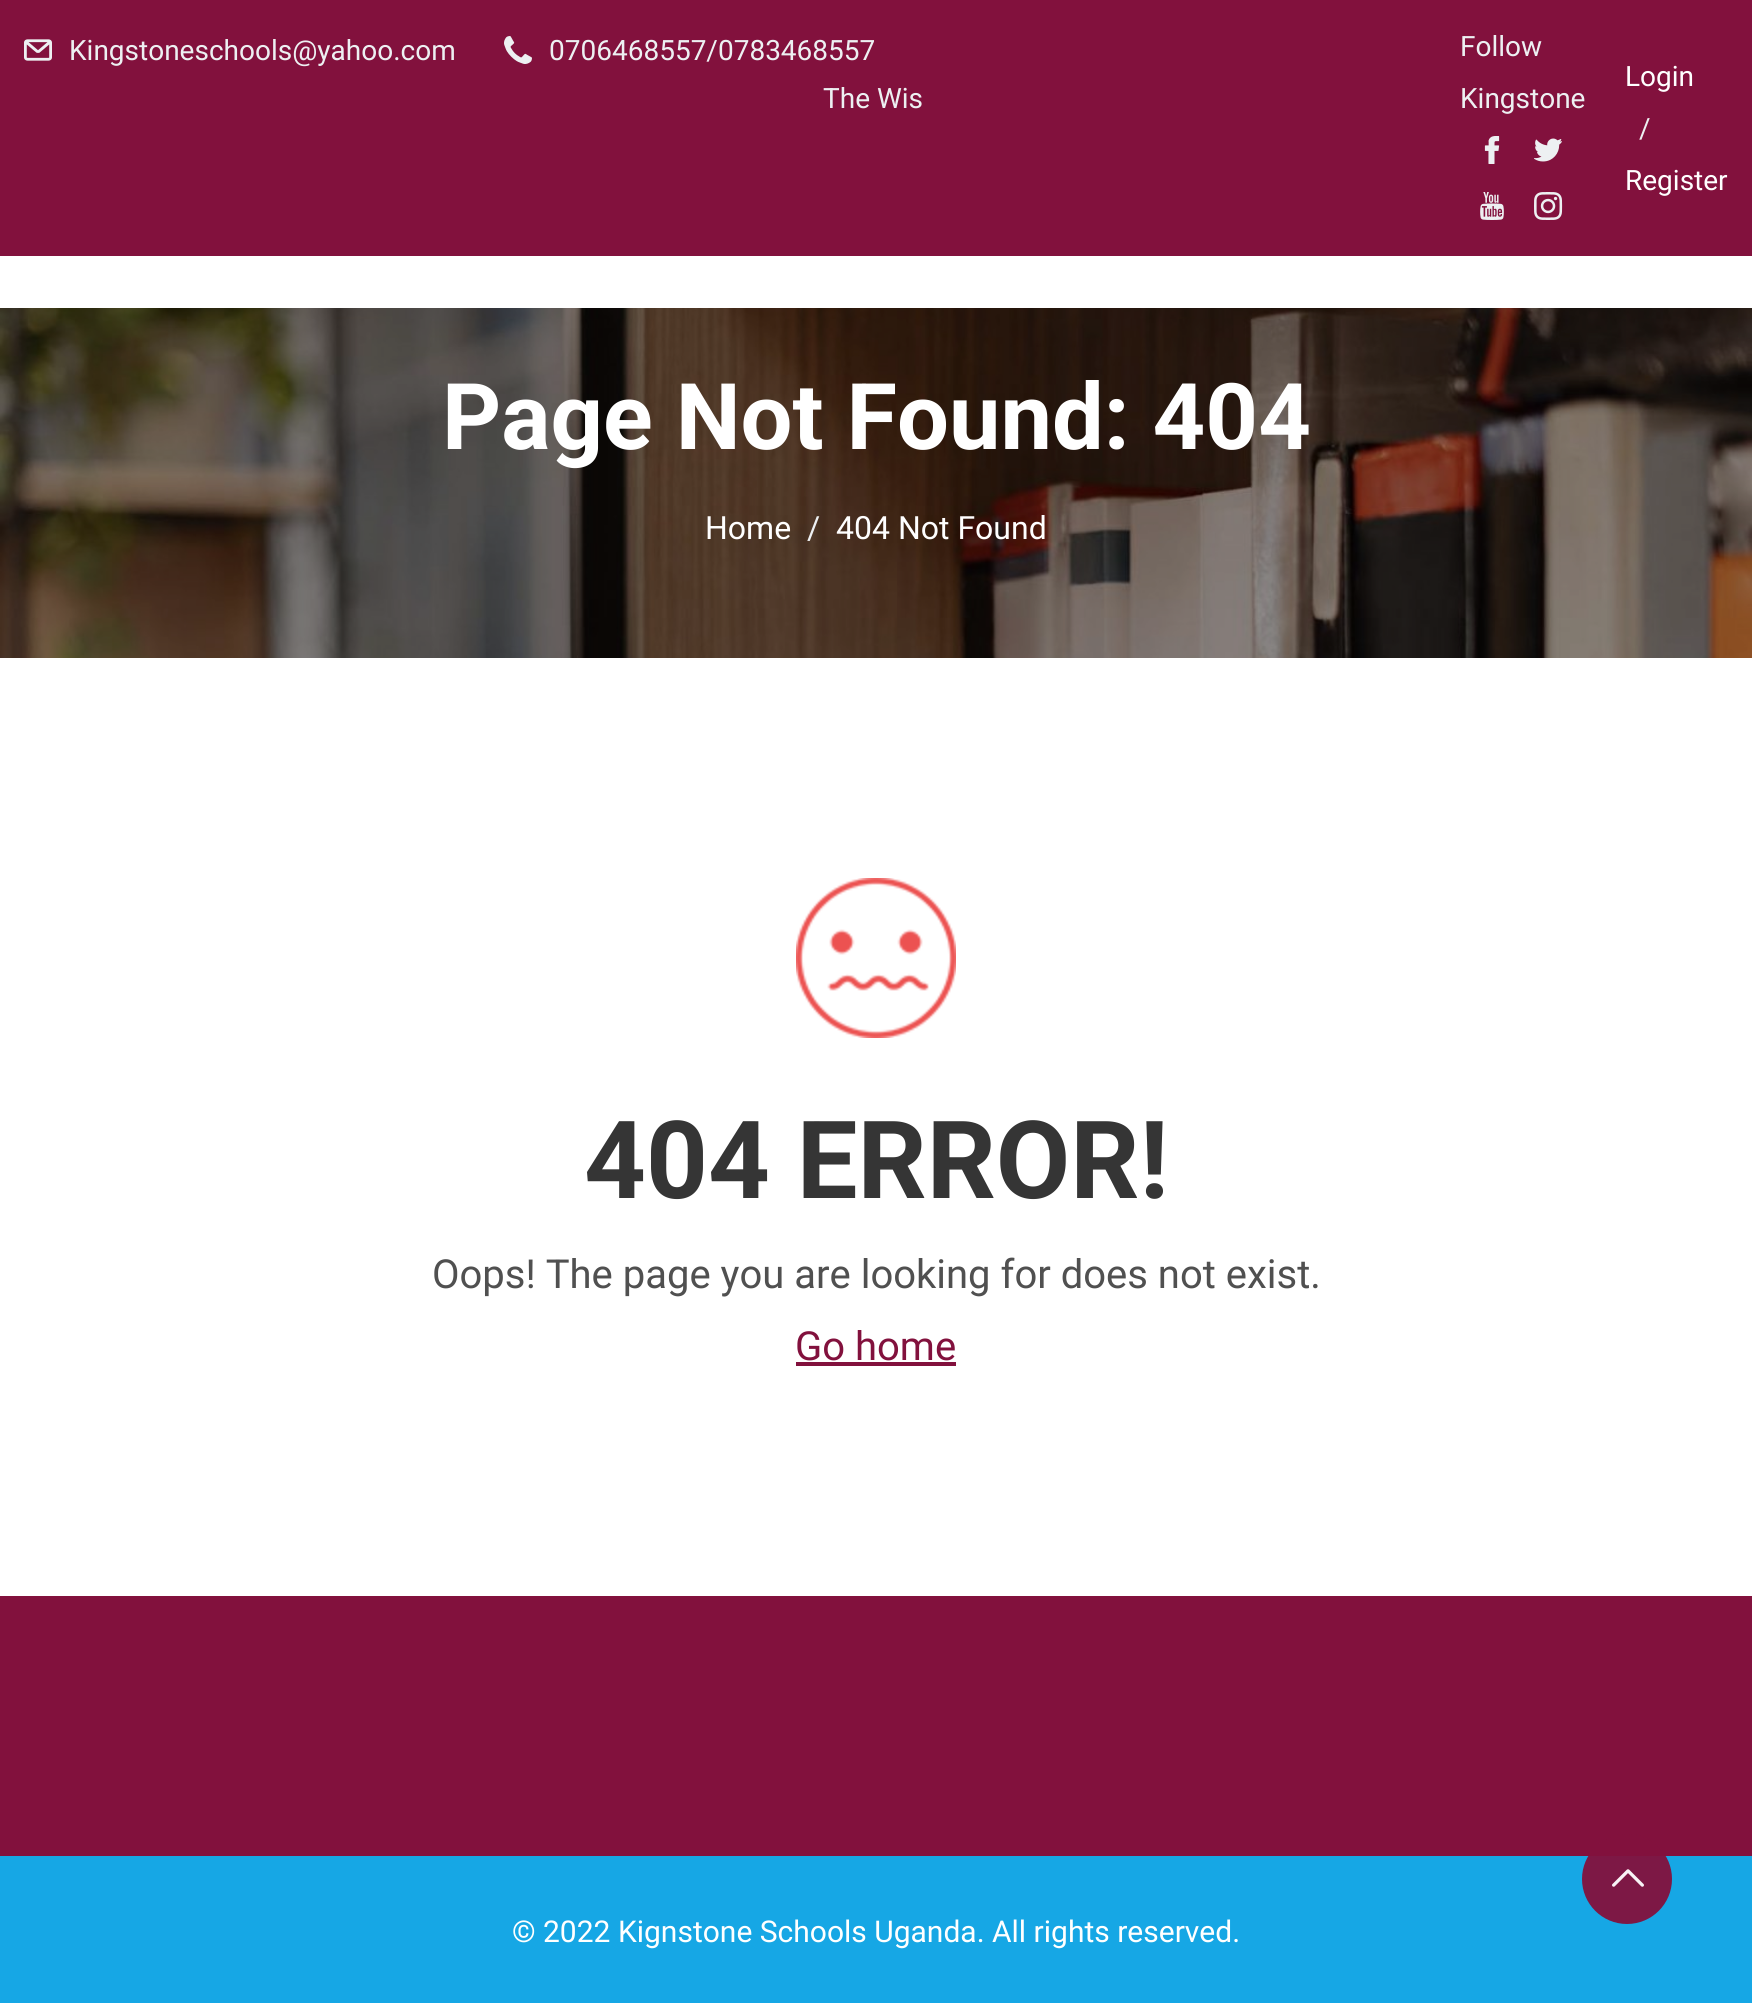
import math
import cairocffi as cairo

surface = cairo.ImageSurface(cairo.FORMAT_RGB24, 1752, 2003)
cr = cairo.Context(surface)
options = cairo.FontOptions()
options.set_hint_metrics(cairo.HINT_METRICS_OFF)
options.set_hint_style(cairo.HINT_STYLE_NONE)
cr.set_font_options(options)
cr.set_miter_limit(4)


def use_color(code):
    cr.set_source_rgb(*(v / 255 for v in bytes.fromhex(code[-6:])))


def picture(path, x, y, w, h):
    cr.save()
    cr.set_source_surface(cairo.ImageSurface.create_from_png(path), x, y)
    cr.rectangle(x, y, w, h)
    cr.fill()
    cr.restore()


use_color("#ffffff")
cr.paint()
use_color("#82113d")
cr.rectangle(0, 0, 1752, 256)
cr.fill()
picture("img1.png", 24, 39, 28, 22)
cr.select_font_face("Roboto")
cr.set_font_size(28)
use_color("#edf0f2")
cr.move_to(69, 60)
cr.show_text("Kingstoneschools@yahoo.com")
picture("img2.png", 504, 36, 28, 28)
cr.move_to(549, 60)
cr.show_text("0706468557/0783468557")
cr.move_to(823, 108)
cr.show_text("The Wis")
cr.move_to(1460, 56)
cr.show_text("Follow")
cr.move_to(1460, 108)
cr.show_text("Kingstone")
picture("img3.png", 1484, 136, 16, 28)
picture("img4.png", 1534, 138, 28, 24)
picture("img5.png", 1480, 192, 24, 28)
picture("img6.png", 1534, 192, 29, 28)
use_color("#ffffff")
cr.move_to(1625, 86)
cr.show_text("Login")
use_color("#edf0f2")
cr.move_to(1639, 138)
cr.show_text("/")
use_color("#ffffff")
cr.move_to(1625, 190)
cr.show_text("Register")
picture("img7.png", 0, 308, 1752, 350)
cr.select_font_face("Roboto", cairo.FONT_SLANT_NORMAL, cairo.FONT_WEIGHT_BOLD)
cr.set_font_size(92)
cr.move_to(442, 449)
cr.show_text("Page Not Found: 404")
cr.select_font_face("Roboto")
cr.set_font_size(32)
cr.move_to(705, 539)
cr.show_text("Home")
use_color("#edf0f2")
cr.move_to(807, 539)
cr.show_text("/")
use_color("#ffffff")
cr.move_to(836, 539)
cr.show_text("404 Not Found")
picture("img8.png", 796, 878, 160, 160)
cr.select_font_face("Roboto", cairo.FONT_SLANT_NORMAL, cairo.FONT_WEIGHT_BOLD)
cr.set_font_size(108)
use_color("#353535")
cr.move_to(584, 1198)
cr.show_text("404 ERROR!")
cr.select_font_face("Roboto")
cr.set_font_size(40)
use_color("#505050")
cr.move_to(432, 1288)
cr.show_text("Oops! The page you are looking for does not exist.")
use_color("#82113d")
cr.move_to(795, 1360)
cr.show_text("Go home")
cr.rectangle(796, 1362, 160, 4)
cr.fill()
cr.rectangle(0, 1596, 1752, 260)
cr.fill()
use_color("#16a7e5")
cr.rectangle(0, 1856, 1752, 147)
cr.fill()
cr.set_font_size(30)
use_color("#ffffff")
cr.move_to(512, 1942)
cr.show_text("© 2022 Kignstone Schools Uganda. All rights reserved.")
cr.set_source_rgba(0.51, 0.067, 0.239, 0.95)
cr.new_path()
cr.arc(1627, 1879, 45, 0, 2 * math.pi)
cr.fill()
picture("img9.png", 1612, 1869, 32, 18)
surface.write_to_png("result.png")
